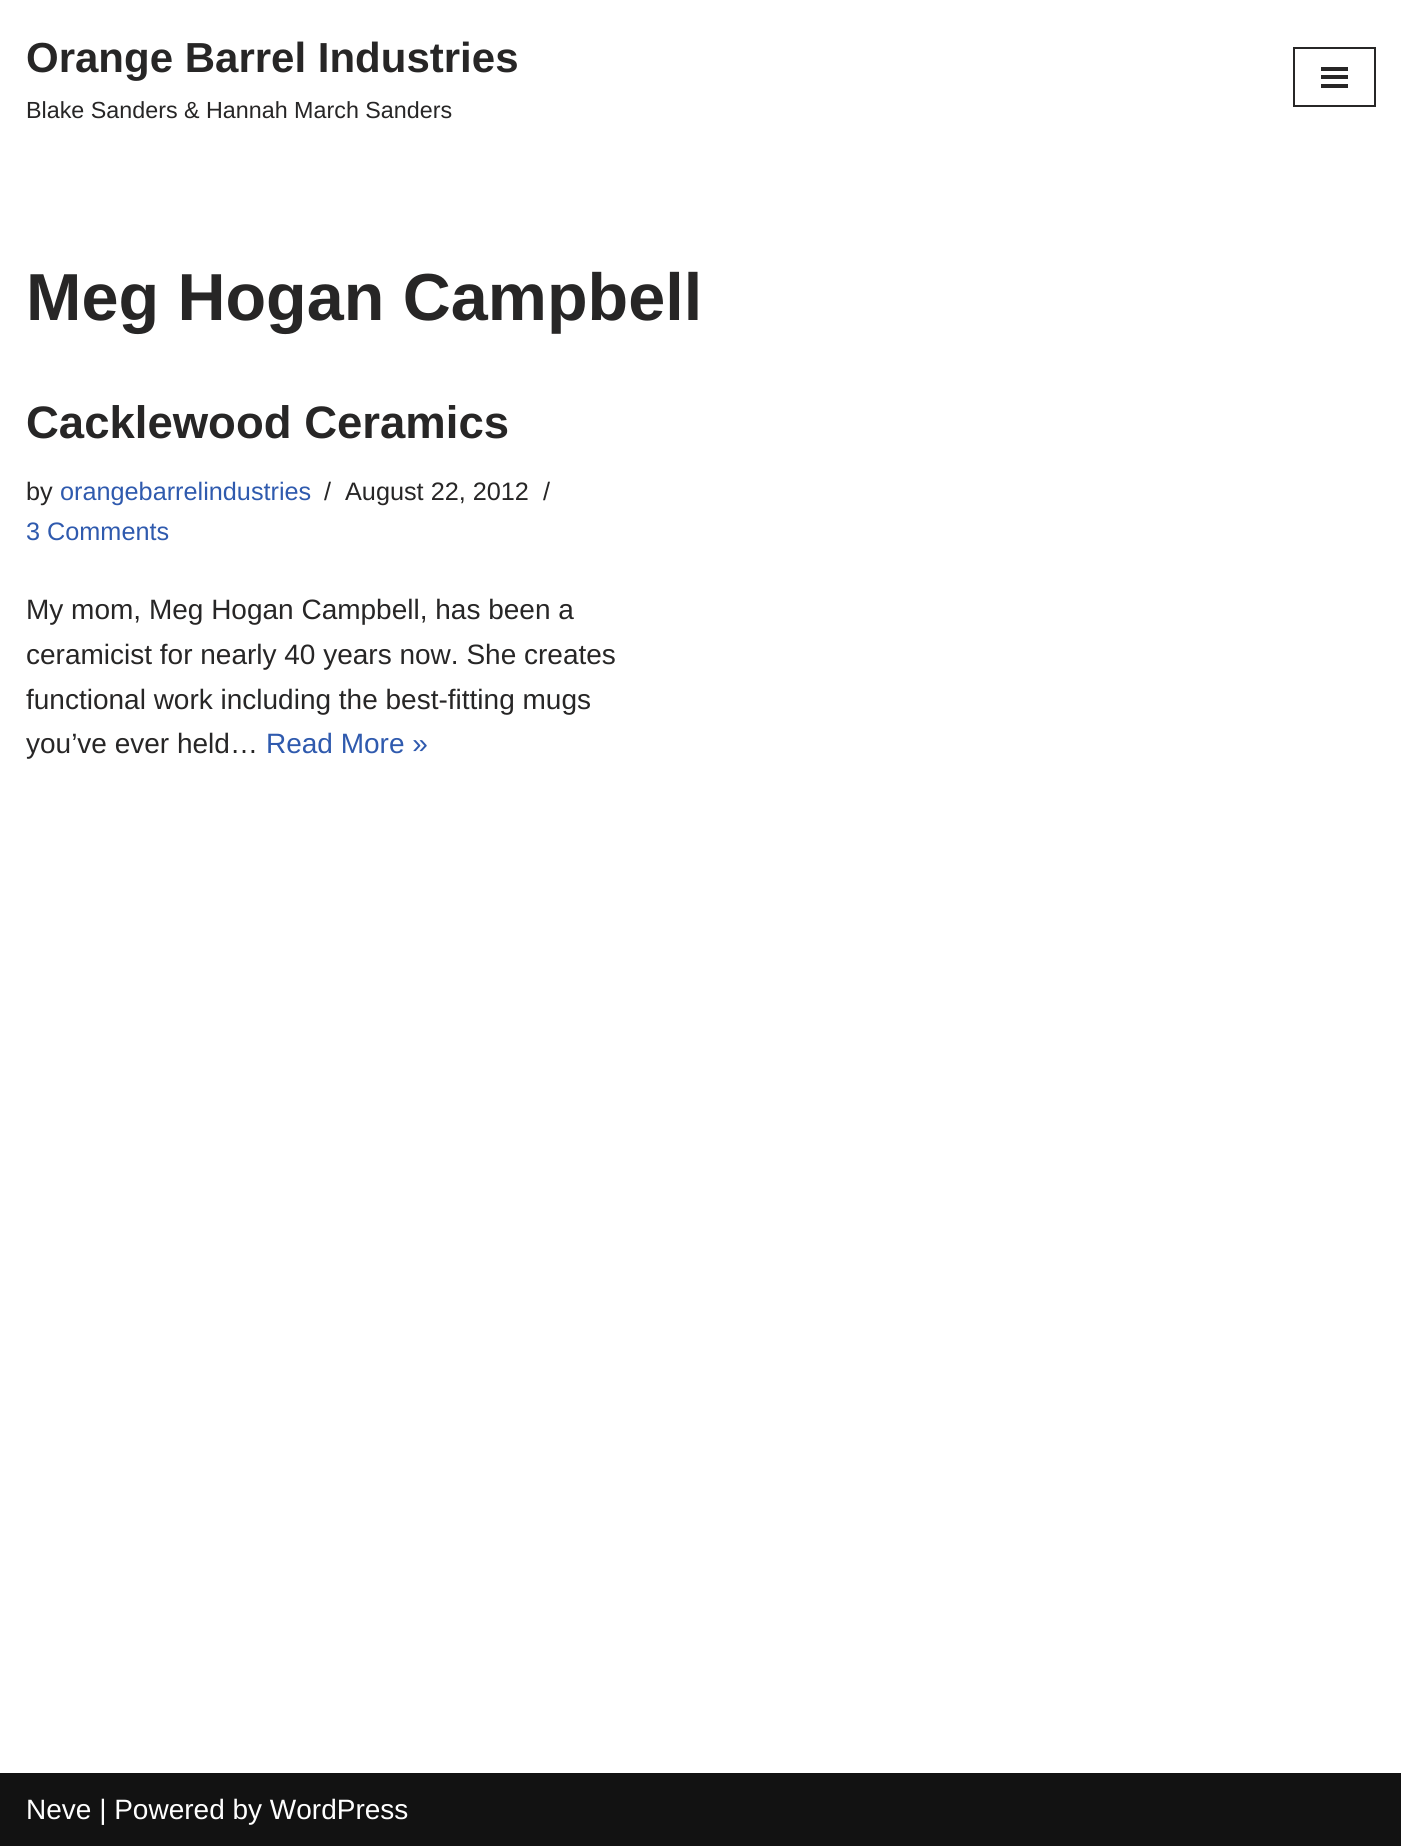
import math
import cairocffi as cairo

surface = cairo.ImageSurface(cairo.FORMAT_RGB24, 1401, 1846)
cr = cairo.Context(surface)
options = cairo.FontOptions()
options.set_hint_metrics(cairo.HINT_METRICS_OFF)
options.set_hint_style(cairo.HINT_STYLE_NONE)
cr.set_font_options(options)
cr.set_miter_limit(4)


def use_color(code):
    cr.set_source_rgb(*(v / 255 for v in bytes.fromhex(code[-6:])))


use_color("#ffffff")
cr.paint()
cr.select_font_face("Liberation Sans", cairo.FONT_SLANT_NORMAL, cairo.FONT_WEIGHT_BOLD)
cr.set_font_size(42)
use_color("#272626")
cr.move_to(26, 72)
cr.show_text("Orange Barrel Industries")
cr.select_font_face("Liberation Sans")
cr.set_font_size(23.3)
cr.move_to(26, 118)
cr.show_text("Blake Sanders & Hannah March Sanders")
cr.rectangle(1294, 48, 81, 58)
cr.stroke()
cr.rectangle(1321, 67, 27, 4)
cr.fill()
cr.rectangle(1321, 75, 27, 4)
cr.fill()
cr.rectangle(1321, 84, 27, 4)
cr.fill()
cr.select_font_face("Liberation Sans", cairo.FONT_SLANT_NORMAL, cairo.FONT_WEIGHT_BOLD)
cr.set_font_size(66.5)
cr.move_to(26, 320)
cr.show_text("Meg Hogan Campbell")
cr.set_font_size(45.5)
cr.move_to(26, 438)
cr.show_text("Cacklewood Ceramics")
cr.select_font_face("Liberation Sans")
cr.set_font_size(25.25)
cr.move_to(26, 500)
cr.show_text("by")
use_color("#2f5aae")
cr.move_to(60, 500)
cr.show_text("orangebarrelindustries")
use_color("#272626")
cr.move_to(324, 500)
cr.show_text("/")
cr.move_to(345, 500)
cr.show_text("August 22, 2012")
cr.move_to(543, 500)
cr.show_text("/")
use_color("#2f5aae")
cr.move_to(26, 540)
cr.show_text("3 Comments")
cr.set_font_size(28)
use_color("#272626")
cr.move_to(26, 619)
cr.show_text("My mom, Meg Hogan Campbell, has been a")
cr.move_to(26, 664)
cr.show_text("ceramicist for nearly 40 years now. She creates")
cr.move_to(26, 709)
cr.show_text("functional work including the best-fitting mugs")
cr.move_to(26, 753)
cr.show_text("you’ve ever held…")
use_color("#2f5aae")
cr.move_to(266, 753)
cr.show_text("Read More »")
use_color("#121212")
cr.rectangle(0, 1773, 1401, 73)
cr.fill()
use_color("#ffffff")
cr.move_to(26, 1819)
cr.show_text("Neve | Powered by WordPress")
surface.write_to_png("result.png")
